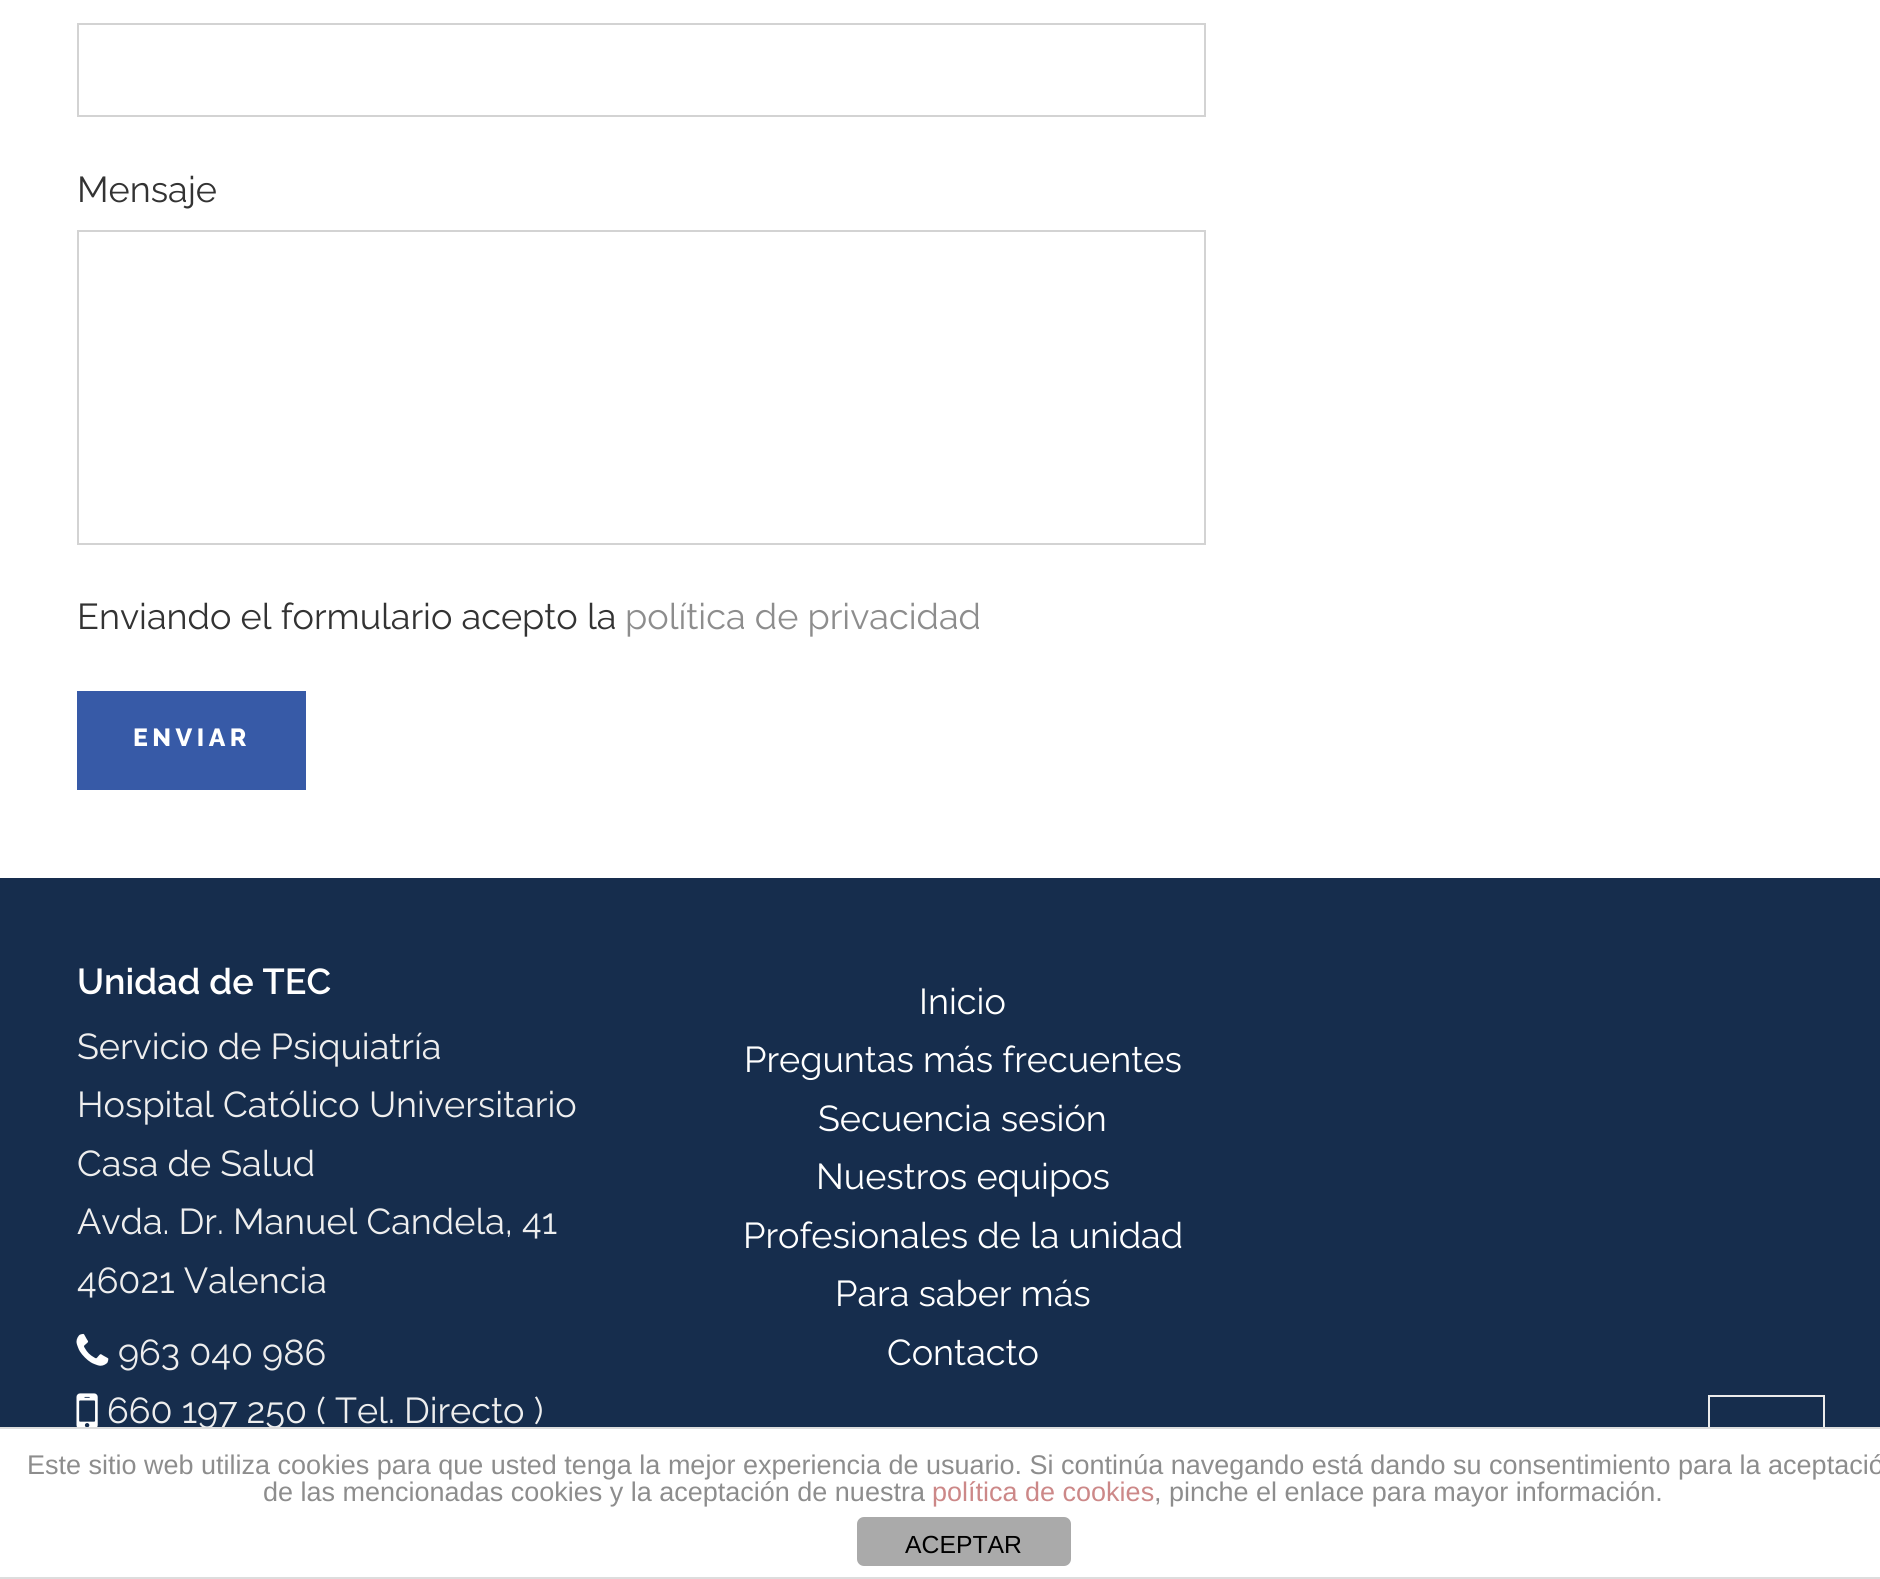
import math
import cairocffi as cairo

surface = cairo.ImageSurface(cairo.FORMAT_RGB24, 1880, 1579)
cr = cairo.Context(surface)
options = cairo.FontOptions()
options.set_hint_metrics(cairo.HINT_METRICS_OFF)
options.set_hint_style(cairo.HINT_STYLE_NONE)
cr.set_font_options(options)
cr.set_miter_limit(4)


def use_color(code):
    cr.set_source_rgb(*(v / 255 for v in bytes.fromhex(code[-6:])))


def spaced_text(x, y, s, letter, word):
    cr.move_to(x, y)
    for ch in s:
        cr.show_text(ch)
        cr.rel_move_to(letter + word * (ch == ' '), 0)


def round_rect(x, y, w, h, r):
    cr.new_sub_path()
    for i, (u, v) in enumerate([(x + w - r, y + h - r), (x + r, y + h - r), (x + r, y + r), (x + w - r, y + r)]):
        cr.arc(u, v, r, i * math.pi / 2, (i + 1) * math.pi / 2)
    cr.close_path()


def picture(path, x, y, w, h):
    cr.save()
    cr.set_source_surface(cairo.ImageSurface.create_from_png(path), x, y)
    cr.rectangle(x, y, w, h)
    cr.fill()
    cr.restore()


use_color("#ffffff")
cr.paint()
cr.rectangle(78, 24, 1127, 92)
use_color("#d3d3d3")
cr.stroke()
cr.select_font_face("Raleway")
cr.set_font_size(36)
use_color("#333333")
cr.move_to(77, 202)
cr.show_text("Mensaje")
cr.rectangle(78, 231, 1127, 313)
use_color("#d3d3d3")
cr.stroke()
use_color("#333333")
cr.move_to(77, 629)
cr.show_text("Enviando el formulario acepto la")
use_color("#8d8d8d")
cr.move_to(625, 629)
cr.show_text("política de privacidad")
use_color("#375aa7")
cr.rectangle(77, 691, 229, 99)
cr.fill()
cr.select_font_face("Raleway ExtraBold")
cr.set_font_size(24.75)
use_color("#ffffff")
spaced_text(133, 746, "ENVIAR", 4.5, 0)
use_color("#162d4d")
cr.rectangle(0, 878, 1880, 549)
cr.fill()
cr.select_font_face("Raleway SemiBold")
cr.set_font_size(36)
use_color("#ffffff")
cr.move_to(77, 994)
cr.show_text("Unidad de TEC")
cr.select_font_face("Raleway")
use_color("#eeeeee")
cr.move_to(77, 1059)
cr.show_text("Servicio de Psiquiatría")
cr.move_to(77, 1117)
cr.show_text("Hospital Católico Universitario")
cr.move_to(77, 1176)
cr.show_text("Casa de Salud")
cr.move_to(77, 1234)
cr.show_text("Avda. Dr. Manuel Candela, 41")
cr.move_to(77, 1293)
cr.show_text("46021 Valencia")
picture("img1.png", 76, 1333, 33, 33)
cr.move_to(118, 1365)
cr.show_text("963 040 986")
picture("img2.png", 76, 1393, 22, 34)
cr.move_to(107, 1423)
cr.show_text("660 197 250 ( Tel. Directo )")
use_color("#ffffff")
cr.move_to(919, 1014)
cr.show_text("Inicio")
cr.move_to(744, 1072)
cr.show_text("Preguntas más frecuentes")
cr.move_to(818, 1131)
cr.show_text("Secuencia sesión")
cr.move_to(816, 1189)
cr.show_text("Nuestros equipos")
cr.move_to(743, 1248)
cr.show_text("Profesionales de la unidad")
cr.move_to(835, 1306)
cr.show_text("Para saber más")
cr.move_to(887, 1365)
cr.show_text("Contacto")
cr.rectangle(1709, 1396, 115, 115)
use_color("#ebebeb")
cr.stroke()
use_color("#ffffff")
cr.rectangle(1708, 1429, 117, 83)
cr.fill()
use_color("#dddddd")
cr.rectangle(0, 1427, 1880, 2)
cr.fill()
cr.rectangle(0, 1577, 1880, 2)
cr.fill()
cr.select_font_face("Liberation Sans")
cr.set_font_size(27)
use_color("#8d8d8d")
cr.move_to(27, 1474)
cr.show_text("Este sitio web utiliza cookies para que usted tenga la mejor experiencia de usuario. Si continúa navegando está dando su consentimiento para la aceptació")
cr.move_to(263, 1501)
cr.show_text("de las mencionadas cookies y la aceptación de nuestra")
use_color("#cc8888")
cr.move_to(932, 1501)
cr.show_text("política de cookies")
use_color("#8d8d8d")
cr.move_to(1154, 1501)
cr.show_text(", pinche el enlace para mayor información.")
use_color("#aaaaaa")
round_rect(857, 1517, 214, 49, 7)
cr.fill()
cr.set_font_size(24.75)
use_color("#000000")
cr.move_to(905, 1553)
cr.show_text("ACEPTAR")
surface.write_to_png("result.png")
